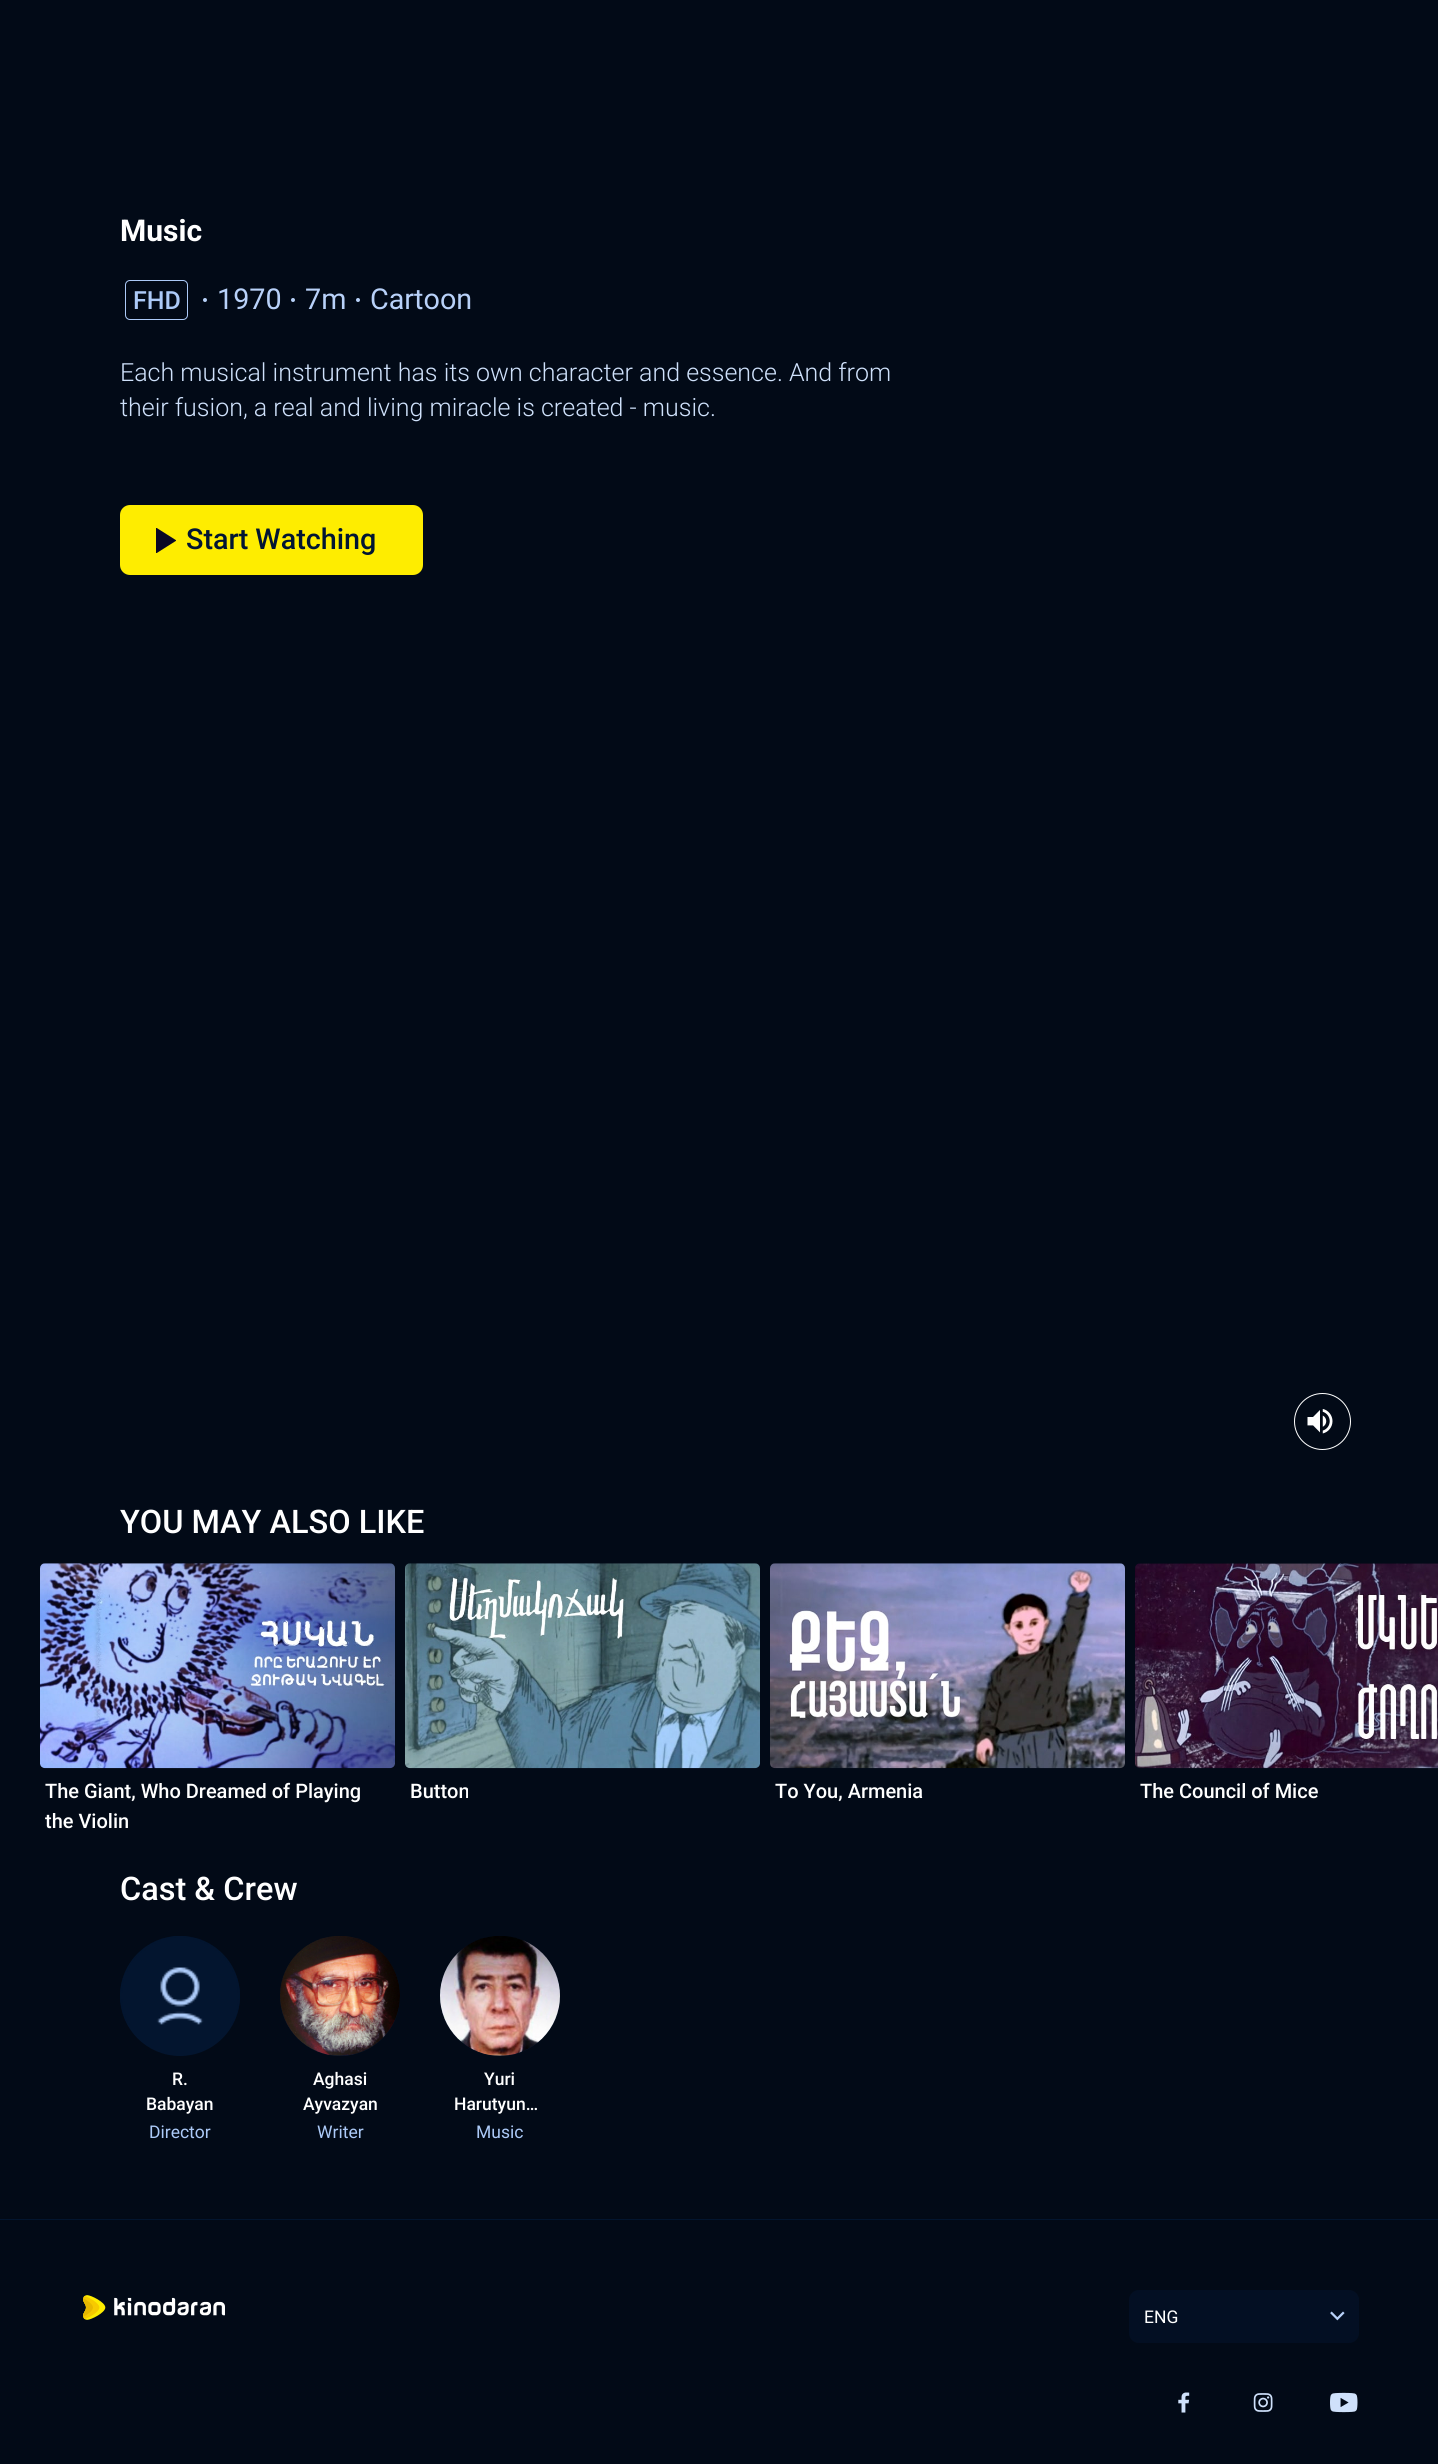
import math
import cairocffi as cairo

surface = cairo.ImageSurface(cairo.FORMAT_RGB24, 1438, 2464)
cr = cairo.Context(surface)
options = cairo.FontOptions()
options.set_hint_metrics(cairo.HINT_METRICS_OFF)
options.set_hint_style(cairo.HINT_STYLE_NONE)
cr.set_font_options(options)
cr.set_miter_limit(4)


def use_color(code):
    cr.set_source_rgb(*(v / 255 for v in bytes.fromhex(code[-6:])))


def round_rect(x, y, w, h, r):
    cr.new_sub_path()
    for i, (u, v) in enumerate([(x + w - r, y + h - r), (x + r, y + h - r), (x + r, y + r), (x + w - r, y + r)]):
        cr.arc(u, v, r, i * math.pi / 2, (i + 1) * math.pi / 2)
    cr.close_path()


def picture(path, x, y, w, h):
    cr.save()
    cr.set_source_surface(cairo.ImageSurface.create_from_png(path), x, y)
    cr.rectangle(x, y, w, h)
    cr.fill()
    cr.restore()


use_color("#020a17")
cr.paint()
cr.select_font_face("Roboto", cairo.FONT_SLANT_NORMAL, cairo.FONT_WEIGHT_BOLD)
cr.set_font_size(30)
use_color("#ffffff")
cr.move_to(120, 241)
cr.show_text("Music")
round_rect(125.5, 280.5, 62, 39, 4.5)
use_color("#accaf8")
cr.set_line_width(1)
cr.stroke()
cr.select_font_face("Roboto Medium")
cr.set_font_size(25)
cr.move_to(133, 309)
cr.show_text("FHD")
use_color("#b8d1f9")
cr.new_path()
cr.arc(205, 300, 2, 0, 2 * math.pi)
cr.fill()
cr.select_font_face("Roboto")
cr.set_font_size(28.75)
cr.move_to(217, 309)
cr.show_text("1970")
cr.new_path()
cr.arc(293, 300, 2, 0, 2 * math.pi)
cr.fill()
cr.move_to(305, 309)
cr.show_text("7m")
cr.new_path()
cr.arc(358, 300, 2, 0, 2 * math.pi)
cr.fill()
cr.move_to(370, 309)
cr.show_text("Cartoon")
cr.select_font_face("Roboto Light")
cr.set_font_size(25)
use_color("#cfe1fb")
cr.move_to(120, 381)
cr.show_text("Each musical instrument has its own character and essence. And from")
cr.move_to(120, 416)
cr.show_text("their fusion, a real and living miracle is created - music.")
use_color("#feed00")
round_rect(120, 505, 303, 70, 10)
cr.fill()
cr.save()
cr.rectangle(156, 528, 20, 25)
cr.clip()
use_color("#0a0824")
cr.set_fill_rule(cairo.FILL_RULE_EVEN_ODD)
cr.new_path()
cr.move_to(156, 553.5)
cr.line_to(156, 527.5)
cr.line_to(176.5, 540.5)
cr.close_path()
cr.fill()
cr.restore()
cr.select_font_face("Roboto Medium")
cr.set_font_size(28.75)
use_color("#011533")
cr.move_to(186, 549)
cr.show_text("Start Watching")
cr.new_path()
cr.arc(1322.5, 1421.5, 28, 0, 2 * math.pi)
use_color("#ffffff")
cr.stroke()
picture("img1.png", 1307, 1409, 26, 25)
cr.set_font_size(32.5)
cr.move_to(120, 1533)
cr.show_text("YOU MAY ALSO LIKE")
picture("img2.png", 40, 1563, 355, 206)
cr.set_font_size(20)
cr.move_to(45, 1798)
cr.show_text("The Giant, Who Dreamed of Playing")
cr.move_to(45, 1828)
cr.show_text("the Violin")
picture("img3.png", 405, 1563, 355, 206)
cr.move_to(410, 1798)
cr.show_text("Button")
picture("img4.png", 770, 1563, 355, 206)
cr.move_to(775, 1798)
cr.show_text("To You, Armenia")
picture("img5.png", 1135, 1563, 303, 206)
cr.move_to(1140, 1798)
cr.show_text("The Council of Mice")
cr.set_font_size(32.5)
cr.move_to(120, 1900)
cr.show_text("Cast & Crew")
use_color("#03152f")
cr.new_path()
cr.arc(180, 1996, 60, 0, 2 * math.pi)
cr.fill()
picture("img6.png", 120, 1936, 120, 89)
cr.set_font_size(17.5)
use_color("#ffffff")
cr.move_to(172, 2085)
cr.show_text("R.")
cr.move_to(146, 2110)
cr.show_text("Babayan")
cr.select_font_face("Roboto")
use_color("#accaf8")
cr.move_to(149, 2138)
cr.show_text("Director")
use_color("#03152f")
cr.new_path()
cr.arc(340, 1996, 60, 0, 2 * math.pi)
cr.fill()
picture("img7.png", 280, 1936, 120, 120)
cr.select_font_face("Roboto Medium")
use_color("#ffffff")
cr.move_to(313, 2085)
cr.show_text("Aghasi")
cr.move_to(303, 2110)
cr.show_text("Ayvazyan")
cr.select_font_face("Roboto")
use_color("#accaf8")
cr.move_to(317, 2138)
cr.show_text("Writer")
use_color("#03152f")
cr.new_path()
cr.arc(500, 1996, 60, 0, 2 * math.pi)
cr.fill()
picture("img8.png", 440, 1936, 120, 120)
cr.select_font_face("Roboto Medium")
use_color("#ffffff")
cr.move_to(484, 2085)
cr.show_text("Yuri")
cr.move_to(454, 2110)
cr.show_text("Harutyun…")
cr.select_font_face("Roboto")
use_color("#accaf8")
cr.move_to(476, 2138)
cr.show_text("Music")
use_color("#03152f")
cr.rectangle(0, 2219, 1438, 1)
cr.fill()
picture("img9.png", 83, 2295, 142, 25)
use_color("#030f23")
round_rect(1129, 2290, 230, 53, 10)
cr.fill()
use_color("#ffffff")
cr.move_to(1144, 2323)
cr.show_text("ENG")
picture("img10.png", 1330, 2311, 15, 10)
picture("img11.png", 1178, 2392, 12, 21)
picture("img12.png", 1253, 2393, 20, 19)
picture("img13.png", 1330, 2392, 28, 21)
surface.write_to_png("result.png")
